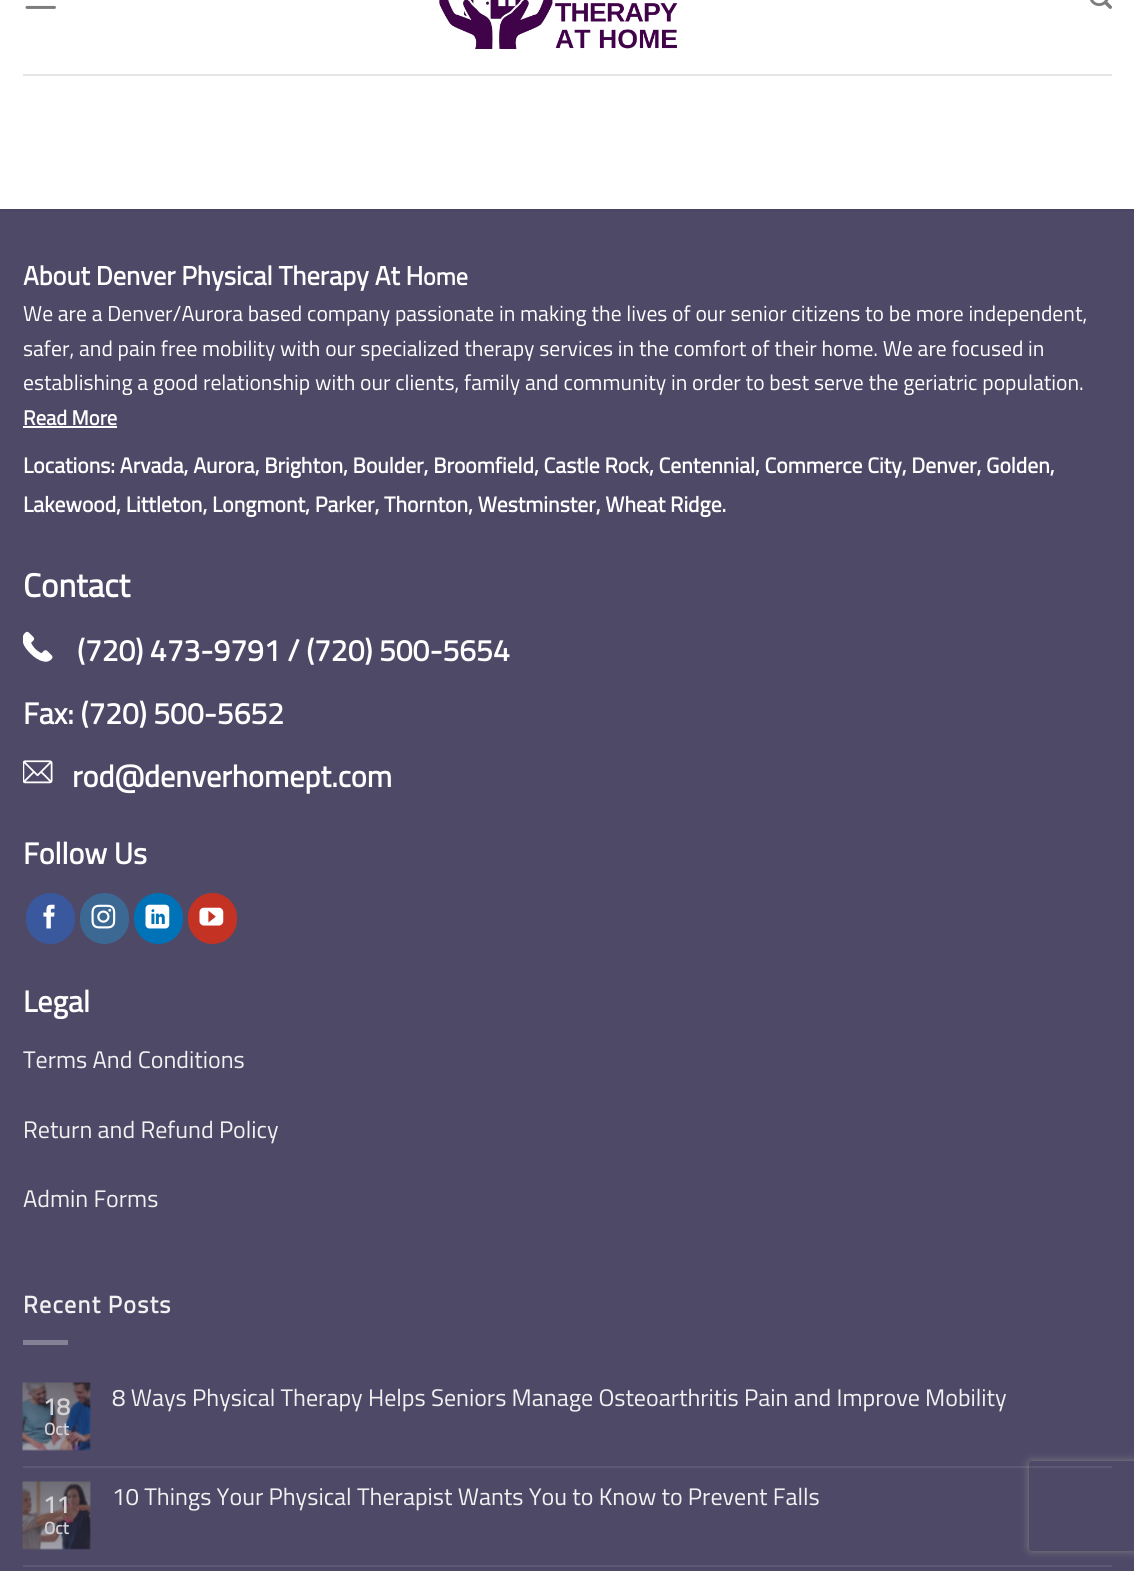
import math
import cairocffi as cairo

surface = cairo.ImageSurface(cairo.FORMAT_RGB24, 1134, 1571)
cr = cairo.Context(surface)
options = cairo.FontOptions()
options.set_hint_metrics(cairo.HINT_METRICS_OFF)
options.set_hint_style(cairo.HINT_STYLE_NONE)
cr.set_font_options(options)
cr.set_miter_limit(4)


def use_color(code):
    cr.set_source_rgb(*(v / 255 for v in bytes.fromhex(code[-6:])))


def spaced_text(x, y, s, letter, word):
    cr.move_to(x, y)
    for ch in s:
        cr.show_text(ch)
        cr.rel_move_to(letter + word * (ch == ' '), 0)


def round_rect(x, y, w, h, r):
    cr.new_sub_path()
    for i, (u, v) in enumerate([(x + w - r, y + h - r), (x + r, y + h - r), (x + r, y + r), (x + w - r, y + r)]):
        cr.arc(u, v, r, i * math.pi / 2, (i + 1) * math.pi / 2)
    cr.close_path()


def shadow(x, y, w, h, r, blur, alpha):
    cr.push_group_with_content(cairo.CONTENT_ALPHA)
    cr.set_operator(cairo.OPERATOR_SOURCE)
    for i in range(15, -16, -2):
        e = blur * i / 6
        if min(w, h) + 2 * e > 0:
            cr.set_source_rgba(0, 0, 0, alpha * math.erfc((i - 1) / 8.5) / 2)
            round_rect(x - e, y - e, w + 2 * e, h + 2 * e, max(0, min(r + e + blur * .6, min(w, h) / 2 + e)))
            cr.fill()
    cr.mask(cr.pop_group())


def picture(path, x, y, w, h):
    cr.save()
    cr.set_source_surface(cairo.ImageSurface.create_from_png(path), x, y)
    cr.rectangle(x, y, w, h)
    cr.fill()
    cr.restore()


use_color("#ffffff")
cr.paint()
picture("img1.png", 25, 5, 31, 4)
picture("img2.png", 439, 0, 239, 49)
picture("img3.png", 1090, 0, 22, 9)
use_color("#e6e6e6")
cr.rectangle(23, 74, 1089, 2)
cr.fill()
use_color("#4f4968")
cr.rectangle(0, 211, 1134, 1360)
cr.fill()
use_color("#4b4563")
cr.rectangle(0, 209, 1134, 2)
cr.fill()
cr.select_font_face("Titillium Web", cairo.FONT_SLANT_NORMAL, cairo.FONT_WEIGHT_BOLD)
cr.set_font_size(26.4)
use_color("#ffffff")
cr.move_to(23, 285)
cr.show_text("About Denver Physical Therapy At H")
cr.set_font_size(24)
cr.move_to(423, 285)
cr.show_text("ome")
cr.select_font_face("Titillium Web")
cr.set_font_size(21.6)
cr.move_to(23, 321)
cr.show_text("We are a Denver/Aurora based company passionate in making the lives of our senior citizens to be more independent,")
cr.move_to(23, 356)
cr.show_text("safer, and pain free mobility with our specialized therapy services in the comfort of their home. We are focused in")
cr.move_to(23, 390)
cr.show_text("establishing a good relationship with our clients, family and community in order to best serve the geriatric population.")
cr.select_font_face("Titillium Web", cairo.FONT_SLANT_NORMAL, cairo.FONT_WEIGHT_BOLD)
cr.set_font_size(20.5)
cr.move_to(23, 425)
cr.show_text("Read More")
cr.rectangle(23, 426, 94, 2)
cr.fill()
cr.set_font_size(21.6)
cr.move_to(23, 473)
cr.show_text("Locations: Arvada, Aurora, Brighton, Boulder, Broomfield, Castle Rock, Centennial, Commerce City, Denver, Golden,")
cr.move_to(23, 512)
cr.show_text("Lakewood, Littleton, Longmont, Parker, Thornton, Westminster, Wheat Ridge.")
cr.set_font_size(33)
cr.move_to(23, 597)
cr.show_text("Contact")
picture("img4.png", 23, 631, 30, 31)
cr.set_font_size(30)
cr.move_to(77, 661)
cr.show_text("(720) 473-9791 / (720) 500-5654")
cr.move_to(23, 724)
cr.show_text("Fax: (720) 500-5652")
picture("img5.png", 23, 760, 30, 24)
cr.set_font_size(30.25)
cr.move_to(72, 787)
cr.show_text("rod@denverhomept.com")
cr.set_font_size(30)
cr.move_to(23, 864)
cr.show_text("Follow Us")
use_color("#3a589d")
round_rect(27, 894, 47, 49, 23.5)
cr.fill_preserve()
cr.stroke()
picture("img6.png", 43, 904, 12, 25)
use_color("#3b6994")
round_rect(81, 894, 47, 49, 23.5)
cr.fill_preserve()
cr.stroke()
picture("img7.png", 91, 904, 25, 25)
use_color("#0072b7")
round_rect(135, 894, 47, 49, 23.5)
cr.fill_preserve()
cr.stroke()
picture("img8.png", 145, 904, 25, 25)
use_color("#c33223")
round_rect(189, 894, 47, 49, 23.5)
cr.fill_preserve()
cr.stroke()
picture("img9.png", 199, 907, 25, 19)
use_color("#ffffff")
cr.move_to(23, 1012)
cr.show_text("Legal")
cr.select_font_face("Titillium Web")
cr.set_font_size(24)
use_color("#f1f1f1")
cr.move_to(23, 1068)
cr.show_text("Terms And Conditions")
cr.move_to(23, 1138)
cr.show_text("Return and Refund Policy")
cr.move_to(23, 1207)
cr.show_text("Admin Forms")
cr.select_font_face("Titillium Web", cairo.FONT_SLANT_NORMAL, cairo.FONT_WEIGHT_BOLD)
spaced_text(23, 1313, "Recent Posts", 1.25, 0)
use_color("#848095")
cr.rectangle(23, 1340, 45, 5)
cr.fill()
picture("img10.png", 22, 1382, 69, 69)
use_color("#d2d2d5")
cr.move_to(43, 1415)
cr.show_text("18")
cr.set_font_size(17)
cr.move_to(44, 1435)
cr.show_text("Oct")
cr.select_font_face("Titillium Web")
cr.set_font_size(24)
use_color("#f1f1f1")
cr.move_to(112, 1406)
cr.show_text("8 Ways Physical Therapy Helps Seniors Manage Osteoarthritis Pain and Improve Mobility")
use_color("#5d5874")
cr.rectangle(23, 1466, 1089, 2)
cr.fill()
picture("img11.png", 22, 1481, 69, 69)
cr.select_font_face("Titillium Web", cairo.FONT_SLANT_NORMAL, cairo.FONT_WEIGHT_BOLD)
use_color("#d2d2d5")
cr.move_to(43, 1513)
cr.show_text("11")
cr.set_font_size(17)
cr.move_to(44, 1534)
cr.show_text("Oct")
cr.select_font_face("Titillium Web")
cr.set_font_size(24)
use_color("#f1f1f1")
cr.move_to(112, 1505)
cr.show_text("10 Things Your Physical Therapist Wants You to Know to Prevent Falls")
use_color("#5d5874")
cr.rectangle(23, 1565, 1089, 2)
cr.fill()
cr.save()
cr.set_fill_rule(cairo.FILL_RULE_EVEN_ODD)
cr.new_path()
cr.move_to(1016, 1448)
cr.line_to(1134, 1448)
cr.line_to(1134, 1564)
cr.line_to(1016, 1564)
cr.close_path()
cr.move_to(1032, 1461)
cr.line_to(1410, 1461)
cr.curve_to(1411.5, 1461, 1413, 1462.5, 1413, 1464)
cr.line_to(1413, 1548)
cr.curve_to(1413, 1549.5, 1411.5, 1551, 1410, 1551)
cr.line_to(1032, 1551)
cr.curve_to(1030.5, 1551, 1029, 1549.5, 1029, 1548)
cr.line_to(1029, 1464)
cr.curve_to(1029, 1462.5, 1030.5, 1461, 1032, 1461)
cr.close_path()
cr.clip()
use_color("#808080")
shadow(1029, 1461, 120, 90, 3, 4, 1)
cr.restore()
surface.write_to_png("result.png")
